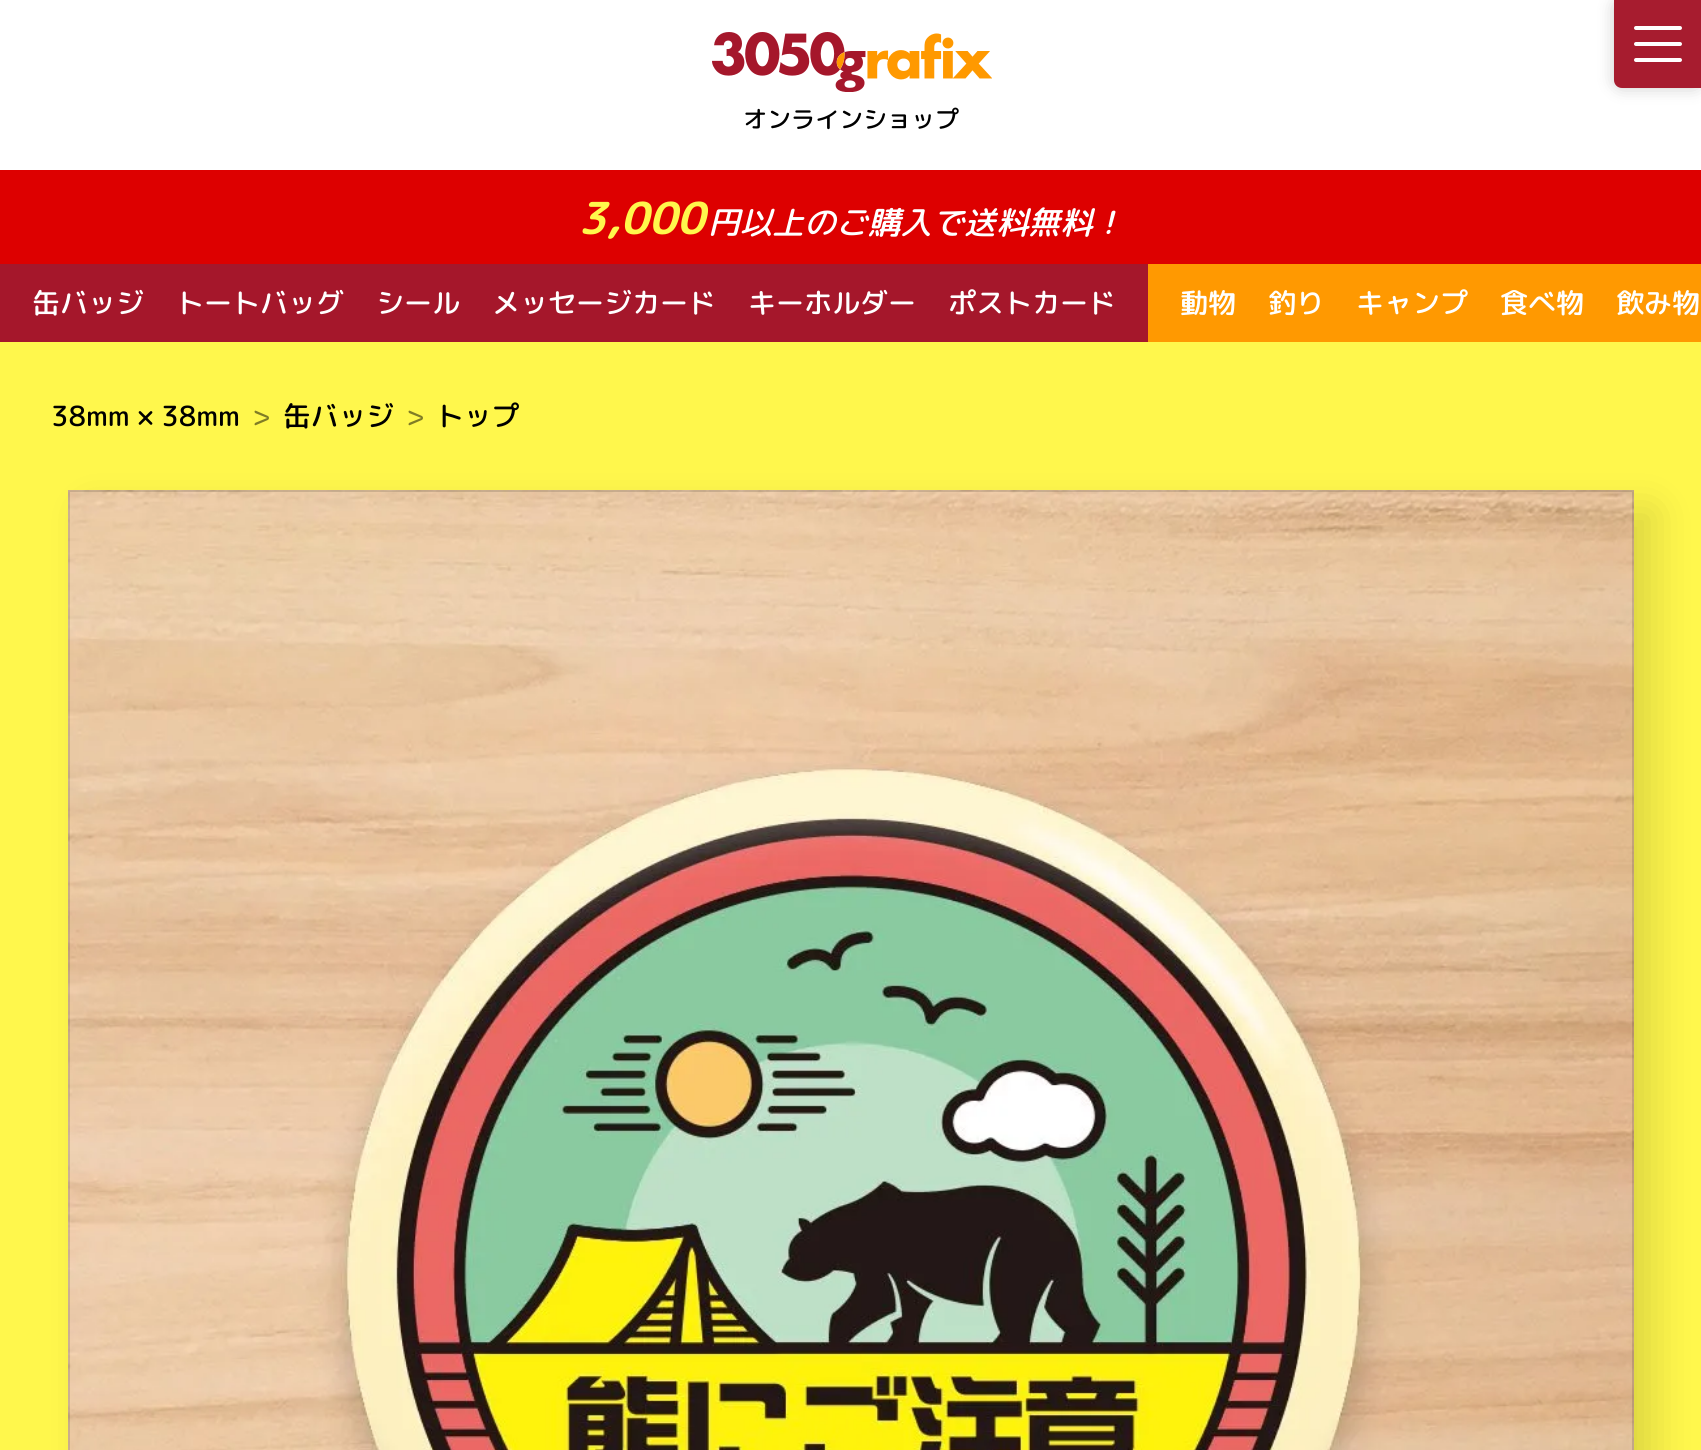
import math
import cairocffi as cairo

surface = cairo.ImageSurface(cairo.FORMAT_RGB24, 1701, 1450)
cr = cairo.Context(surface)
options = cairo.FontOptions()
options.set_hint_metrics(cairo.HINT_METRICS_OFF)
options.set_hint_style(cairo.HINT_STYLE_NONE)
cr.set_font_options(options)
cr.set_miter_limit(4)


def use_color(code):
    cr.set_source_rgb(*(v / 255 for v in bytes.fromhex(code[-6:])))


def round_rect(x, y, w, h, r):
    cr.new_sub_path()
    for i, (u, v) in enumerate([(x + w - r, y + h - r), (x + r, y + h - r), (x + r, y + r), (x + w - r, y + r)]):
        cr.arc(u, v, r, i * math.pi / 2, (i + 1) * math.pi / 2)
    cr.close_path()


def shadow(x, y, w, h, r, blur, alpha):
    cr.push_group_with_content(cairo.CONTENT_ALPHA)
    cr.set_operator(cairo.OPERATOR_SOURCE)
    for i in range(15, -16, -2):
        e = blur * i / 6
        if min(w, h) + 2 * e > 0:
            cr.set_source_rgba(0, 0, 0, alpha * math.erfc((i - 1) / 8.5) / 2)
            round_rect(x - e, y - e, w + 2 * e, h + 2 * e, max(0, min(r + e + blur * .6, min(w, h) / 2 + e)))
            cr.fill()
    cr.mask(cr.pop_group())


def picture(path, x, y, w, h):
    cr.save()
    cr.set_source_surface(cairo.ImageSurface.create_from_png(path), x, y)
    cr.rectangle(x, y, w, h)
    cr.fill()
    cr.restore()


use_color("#fff74c")
cr.paint()
use_color("#ffffff")
cr.rectangle(0, 0, 1701, 170)
cr.fill()
use_color("#050505")
shadow(1614, 0, 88, 88, 8, 8, 0.2)
use_color("#a71c2f")
cr.new_path()
cr.move_to(1614, 0)
cr.line_to(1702, 0)
cr.line_to(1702, 88)
cr.line_to(1622, 88)
cr.curve_to(1617.5, 88, 1614, 84.5, 1614, 80)
cr.close_path()
cr.fill()
use_color("#ffffff")
round_rect(1634, 42, 48, 4, 2)
cr.fill()
round_rect(1634, 26, 48, 4, 2)
cr.fill()
round_rect(1634, 58, 48, 4, 2)
cr.fill()
picture("img1.png", 712, 32, 280, 60)
cr.select_font_face("Rounded Mplus 1c Medium")
cr.set_font_size(24)
use_color("#000000")
cr.move_to(743, 128)
cr.show_text("オンラインショップ")
use_color("#dd0000")
cr.rectangle(0, 170, 1701, 94)
cr.fill()
cr.select_font_face("Rounded Mplus 1c Bold", cairo.FONT_SLANT_ITALIC, cairo.FONT_WEIGHT_BOLD)
cr.set_font_size(44)
use_color("#fff74c")
cr.move_to(578, 234)
cr.show_text("3,000")
cr.select_font_face("Rounded Mplus 1c Medium", cairo.FONT_SLANT_ITALIC)
cr.set_font_size(32)
use_color("#ffffff")
cr.move_to(708, 234)
cr.show_text("円以上のご購入で送料無料！")
use_color("#a5172b")
cr.rectangle(0, 264, 1148, 78)
cr.fill()
cr.select_font_face("Rounded Mplus 1c Medium")
cr.set_font_size(28)
use_color("#ffffff")
cr.move_to(32, 313)
cr.show_text("缶バッジ")
cr.move_to(176, 313)
cr.show_text("トートバッグ")
cr.move_to(376, 313)
cr.show_text("シール")
cr.move_to(492, 313)
cr.show_text("メッセージカード")
cr.move_to(748, 313)
cr.show_text("キーホルダー")
cr.move_to(948, 313)
cr.show_text("ポストカード")
use_color("#ff9901")
cr.rectangle(1148, 264, 553, 78)
cr.fill()
use_color("#ffffff")
cr.move_to(1180, 313)
cr.show_text("動物")
cr.move_to(1268, 313)
cr.show_text("釣り")
cr.move_to(1356, 313)
cr.show_text("キャンプ")
cr.move_to(1500, 313)
cr.show_text("食べ物")
cr.move_to(1616, 313)
cr.show_text("飲み物")
cr.set_font_size(27.75)
use_color("#000000")
cr.move_to(51, 426)
cr.show_text("38mm × 38mm")
use_color("#807c26")
cr.move_to(252, 426)
cr.show_text(">")
use_color("#000000")
cr.move_to(283, 426)
cr.show_text("缶バッジ")
use_color("#807c26")
cr.move_to(406, 426)
cr.show_text(">")
use_color("#000000")
cr.move_to(436, 426)
cr.show_text("トップ")
use_color("#000000")
shadow(88, 510, 1566, 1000, 0, 20, 0.14)
picture("img2.png", 68, 490, 1566, 960)
cr.rectangle(69, 491, 1564, 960)
cr.set_source_rgba(0, 0, 0, 0.14)
cr.stroke()
surface.write_to_png("result.png")
